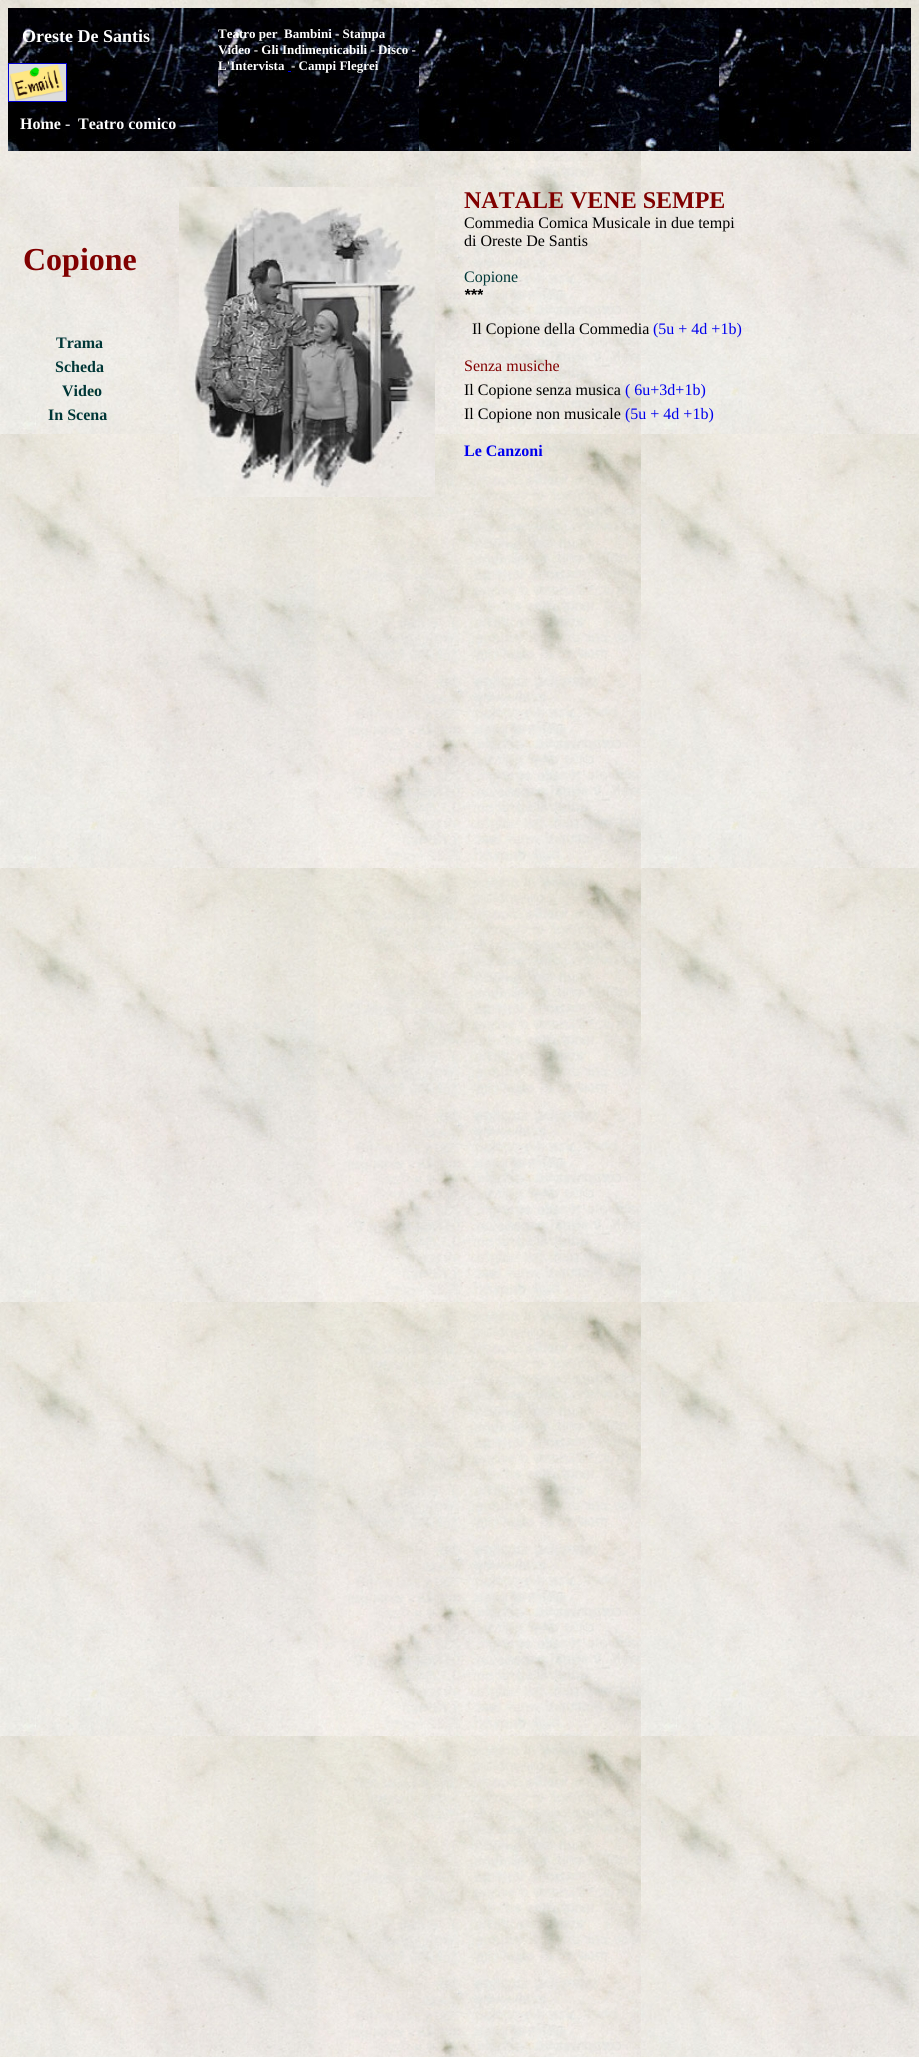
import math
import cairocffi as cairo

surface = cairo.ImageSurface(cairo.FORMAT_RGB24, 919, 2057)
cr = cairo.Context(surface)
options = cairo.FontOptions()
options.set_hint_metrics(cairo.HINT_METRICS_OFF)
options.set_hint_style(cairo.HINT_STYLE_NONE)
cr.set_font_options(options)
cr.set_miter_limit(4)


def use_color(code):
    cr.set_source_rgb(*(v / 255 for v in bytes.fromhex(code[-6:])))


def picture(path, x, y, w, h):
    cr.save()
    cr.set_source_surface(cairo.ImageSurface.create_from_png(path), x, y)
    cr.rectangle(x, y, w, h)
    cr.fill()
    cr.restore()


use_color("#ffffff")
cr.paint()
picture("img1.png", 0, 0, 919, 2057)
picture("img2.png", 8, 8, 210, 143)
cr.select_font_face("Liberation Serif", cairo.FONT_SLANT_NORMAL, cairo.FONT_WEIGHT_BOLD)
cr.set_font_size(18)
use_color("#ffffff")
cr.move_to(22, 42)
cr.show_text("Oreste De Santis")
cr.rectangle(8.5, 63.5, 58, 38)
use_color("#0000cc")
cr.set_line_width(1)
cr.stroke()
picture("img3.png", 9, 64, 57, 37)
cr.set_font_size(16)
use_color("#ffffff")
cr.move_to(20, 129)
cr.show_text("Home")
cr.select_font_face("Liberation Serif")
cr.move_to(65, 129)
cr.show_text("-")
cr.select_font_face("Liberation Serif", cairo.FONT_SLANT_NORMAL, cairo.FONT_WEIGHT_BOLD)
cr.move_to(78, 129)
cr.show_text("Teatro comico")
picture("img4.png", 218, 8, 201, 143)
cr.set_font_size(13)
cr.move_to(218, 38)
cr.show_text("Teatro per  Bambini - Stampa")
cr.move_to(218, 54)
cr.show_text("Video - Gli Indimenticabili - Disco -")
cr.move_to(218, 70)
cr.show_text("L'Intervista")
cr.move_to(291, 70)
cr.show_text("- Campi Flegrei")
use_color("#0000ee")
cr.rectangle(288, 71, 3, 1)
cr.fill()
picture("img5.png", 419, 8, 492, 143)
cr.set_font_size(32)
use_color("#800000")
cr.move_to(23, 270)
cr.show_text("Copione")
cr.set_font_size(16)
use_color("#003737")
cr.move_to(56, 348)
cr.show_text("Trama")
cr.move_to(55, 372)
cr.show_text("Scheda")
cr.move_to(62, 396)
cr.show_text("Video")
cr.move_to(48, 420)
cr.show_text("In Scena")
picture("img6.png", 179, 187, 256, 310)
cr.set_font_size(24)
use_color("#800000")
cr.move_to(464, 208)
cr.show_text("NATALE VENE SEMPE")
cr.select_font_face("Liberation Serif")
cr.set_font_size(16)
use_color("#000000")
cr.move_to(464, 228)
cr.show_text("Commedia Comica Musicale in due tempi")
cr.move_to(464, 246)
cr.show_text("di Oreste De Santis")
use_color("#003737")
cr.move_to(464, 282)
cr.show_text("Copione")
cr.select_font_face("Liberation Sans", cairo.FONT_SLANT_ITALIC, cairo.FONT_WEIGHT_BOLD)
use_color("#000000")
cr.move_to(464, 300)
cr.show_text("***")
cr.select_font_face("Liberation Serif")
cr.move_to(472, 334)
cr.show_text("Il Copione della Commedia")
use_color("#0000ee")
cr.move_to(653, 334)
cr.show_text("(5u + 4d +1b)")
use_color("#800000")
cr.move_to(464, 371)
cr.show_text("Senza musiche")
use_color("#000000")
cr.move_to(464, 395)
cr.show_text("Il Copione senza musica")
use_color("#0000ee")
cr.move_to(625, 395)
cr.show_text("( 6u+3d+1b)")
use_color("#000000")
cr.move_to(464, 419)
cr.show_text("Il Copione non musicale")
use_color("#0000ee")
cr.move_to(625, 419)
cr.show_text("(5u + 4d +1b)")
cr.select_font_face("Liberation Serif", cairo.FONT_SLANT_NORMAL, cairo.FONT_WEIGHT_BOLD)
cr.move_to(464, 456)
cr.show_text("Le Canzoni")
surface.write_to_png("result.png")
